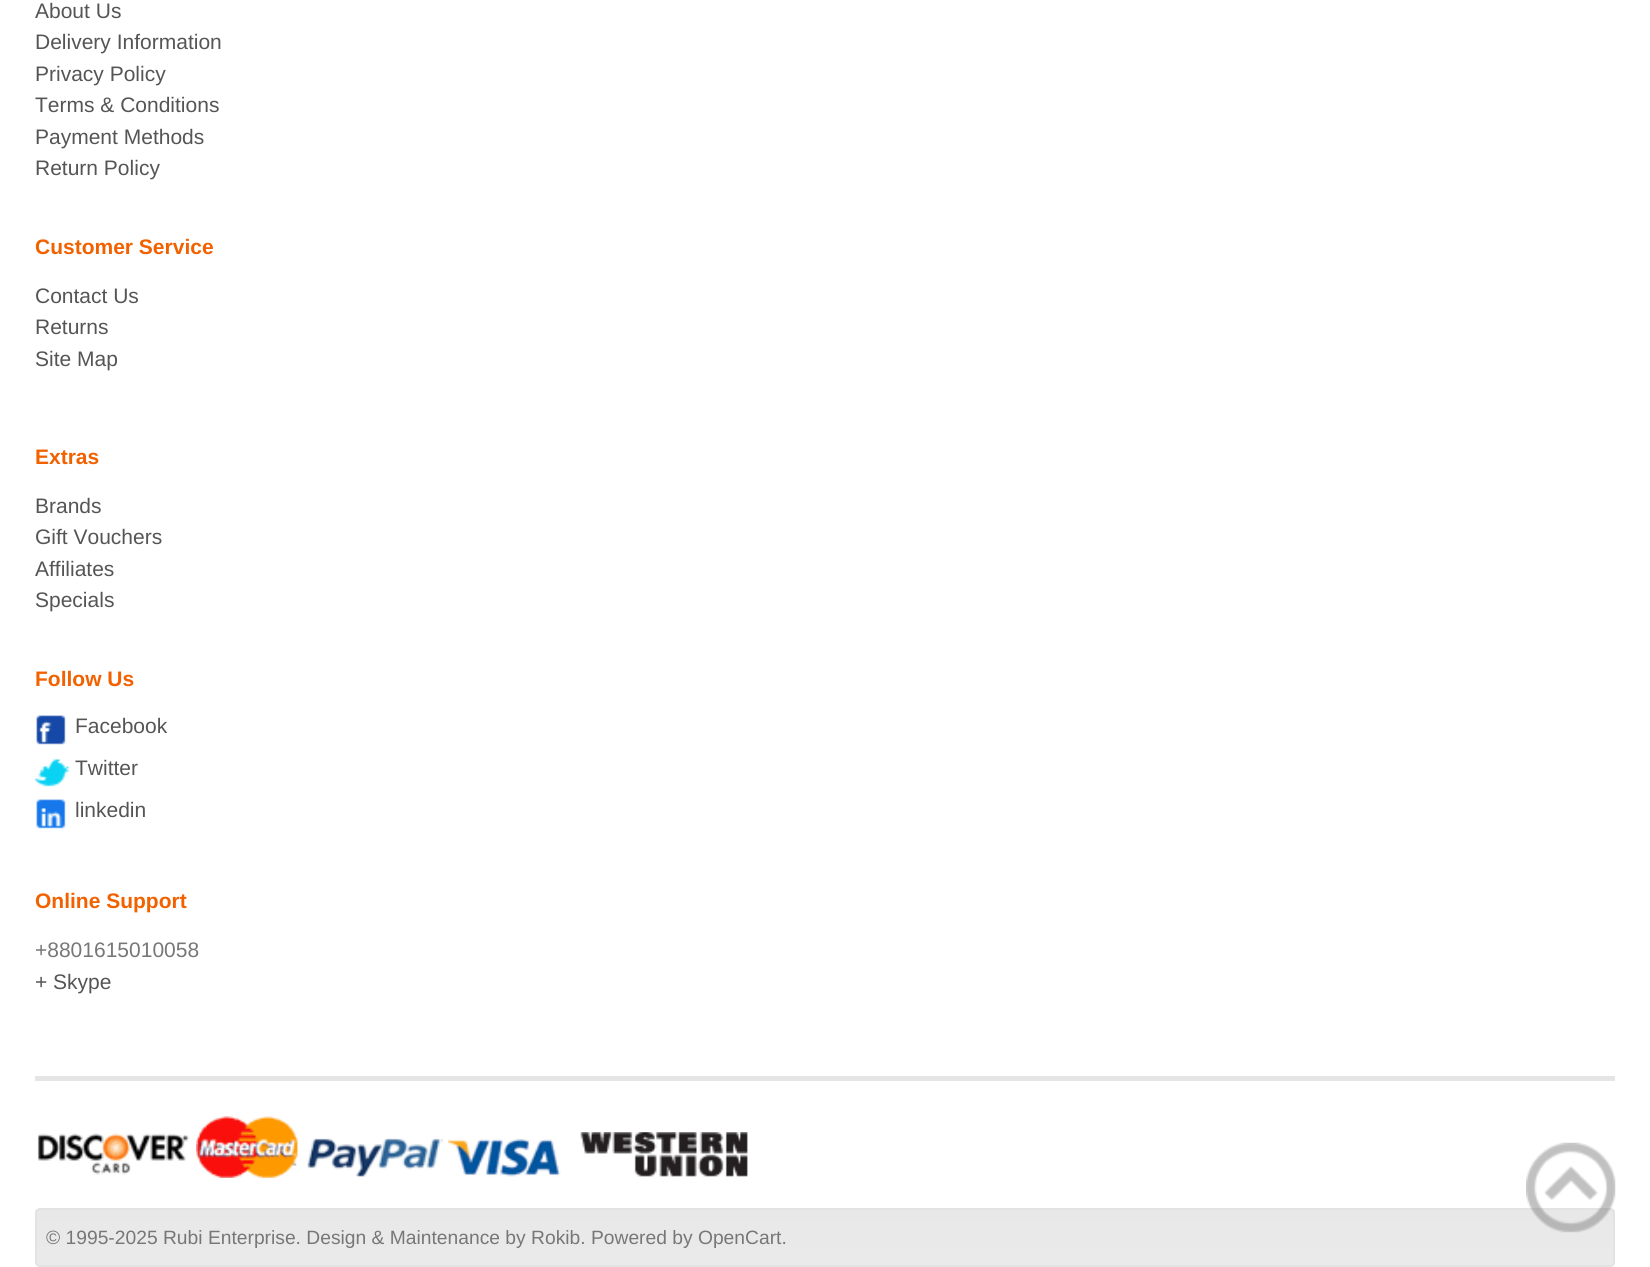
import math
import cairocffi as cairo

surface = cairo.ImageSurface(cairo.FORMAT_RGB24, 1650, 1267)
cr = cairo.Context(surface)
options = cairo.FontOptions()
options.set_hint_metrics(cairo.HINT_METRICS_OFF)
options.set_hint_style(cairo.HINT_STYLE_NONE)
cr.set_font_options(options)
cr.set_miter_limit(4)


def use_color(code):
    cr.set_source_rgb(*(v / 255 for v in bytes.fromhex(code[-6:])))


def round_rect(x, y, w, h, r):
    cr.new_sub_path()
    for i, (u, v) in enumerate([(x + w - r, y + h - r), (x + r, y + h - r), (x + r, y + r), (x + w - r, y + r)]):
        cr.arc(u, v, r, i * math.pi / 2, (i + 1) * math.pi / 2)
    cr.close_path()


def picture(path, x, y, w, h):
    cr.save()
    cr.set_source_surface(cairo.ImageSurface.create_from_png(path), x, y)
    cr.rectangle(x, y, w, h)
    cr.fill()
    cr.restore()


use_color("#ffffff")
cr.paint()
cr.select_font_face("Liberation Sans")
cr.set_font_size(21)
use_color("#555555")
cr.move_to(35, 18)
cr.show_text("About Us")
cr.move_to(35, 49)
cr.show_text("Delivery Information")
cr.move_to(35, 81)
cr.show_text("Privacy Policy")
cr.move_to(35, 112)
cr.show_text("Terms & Conditions")
cr.move_to(35, 144)
cr.show_text("Payment Methods")
cr.move_to(35, 175)
cr.show_text("Return Policy")
cr.select_font_face("Liberation Sans", cairo.FONT_SLANT_NORMAL, cairo.FONT_WEIGHT_BOLD)
use_color("#f26100")
cr.move_to(35, 254)
cr.show_text("Customer Service")
cr.select_font_face("Liberation Sans")
use_color("#555555")
cr.move_to(35, 303)
cr.show_text("Contact Us")
cr.move_to(35, 334)
cr.show_text("Returns")
cr.move_to(35, 366)
cr.show_text("Site Map")
cr.select_font_face("Liberation Sans", cairo.FONT_SLANT_NORMAL, cairo.FONT_WEIGHT_BOLD)
use_color("#f26100")
cr.move_to(35, 464)
cr.show_text("Extras")
cr.select_font_face("Liberation Sans")
use_color("#555555")
cr.move_to(35, 513)
cr.show_text("Brands")
cr.move_to(35, 544)
cr.show_text("Gift Vouchers")
cr.move_to(35, 576)
cr.show_text("Affiliates")
cr.move_to(35, 607)
cr.show_text("Specials")
cr.select_font_face("Liberation Sans", cairo.FONT_SLANT_NORMAL, cairo.FONT_WEIGHT_BOLD)
use_color("#f26100")
cr.move_to(35, 686)
cr.show_text("Follow Us")
picture("img1.png", 36, 715, 30, 30)
cr.select_font_face("Liberation Sans")
use_color("#555555")
cr.move_to(75, 733)
cr.show_text("Facebook")
picture("img2.png", 35, 759, 36, 28)
cr.move_to(75, 775)
cr.show_text("Twitter")
picture("img3.png", 36, 799, 30, 30)
cr.move_to(75, 817)
cr.show_text("linkedin")
cr.select_font_face("Liberation Sans", cairo.FONT_SLANT_NORMAL, cairo.FONT_WEIGHT_BOLD)
use_color("#f26100")
cr.move_to(35, 908)
cr.show_text("Online Support")
cr.select_font_face("Liberation Sans")
use_color("#777777")
cr.move_to(35, 957)
cr.show_text("+8801615010058")
use_color("#555555")
cr.move_to(35, 989)
cr.show_text("+ Skype")
use_color("#e5e5e5")
cr.rectangle(35, 1076, 1580, 5)
cr.fill()
picture("img4.png", 37, 1133, 153, 42)
picture("img5.png", 196, 1116, 102, 62)
picture("img6.png", 307, 1138, 136, 39)
picture("img7.png", 448, 1138, 113, 39)
picture("img8.png", 580, 1132, 168, 45)
picture("img9.png", 35, 1208, 1580, 59)
round_rect(36, 1209, 1578, 57, 4)
use_color("#e3e3e3")
cr.stroke()
cr.set_font_size(19.25)
use_color("#777777")
cr.move_to(46, 1244)
cr.show_text("© 1995-2025 Rubi Enterprise. Design & Maintenance by Rokib. Powered by OpenCart.")
picture("img10.png", 1526, 1142, 90, 91)
surface.write_to_png("result.png")
